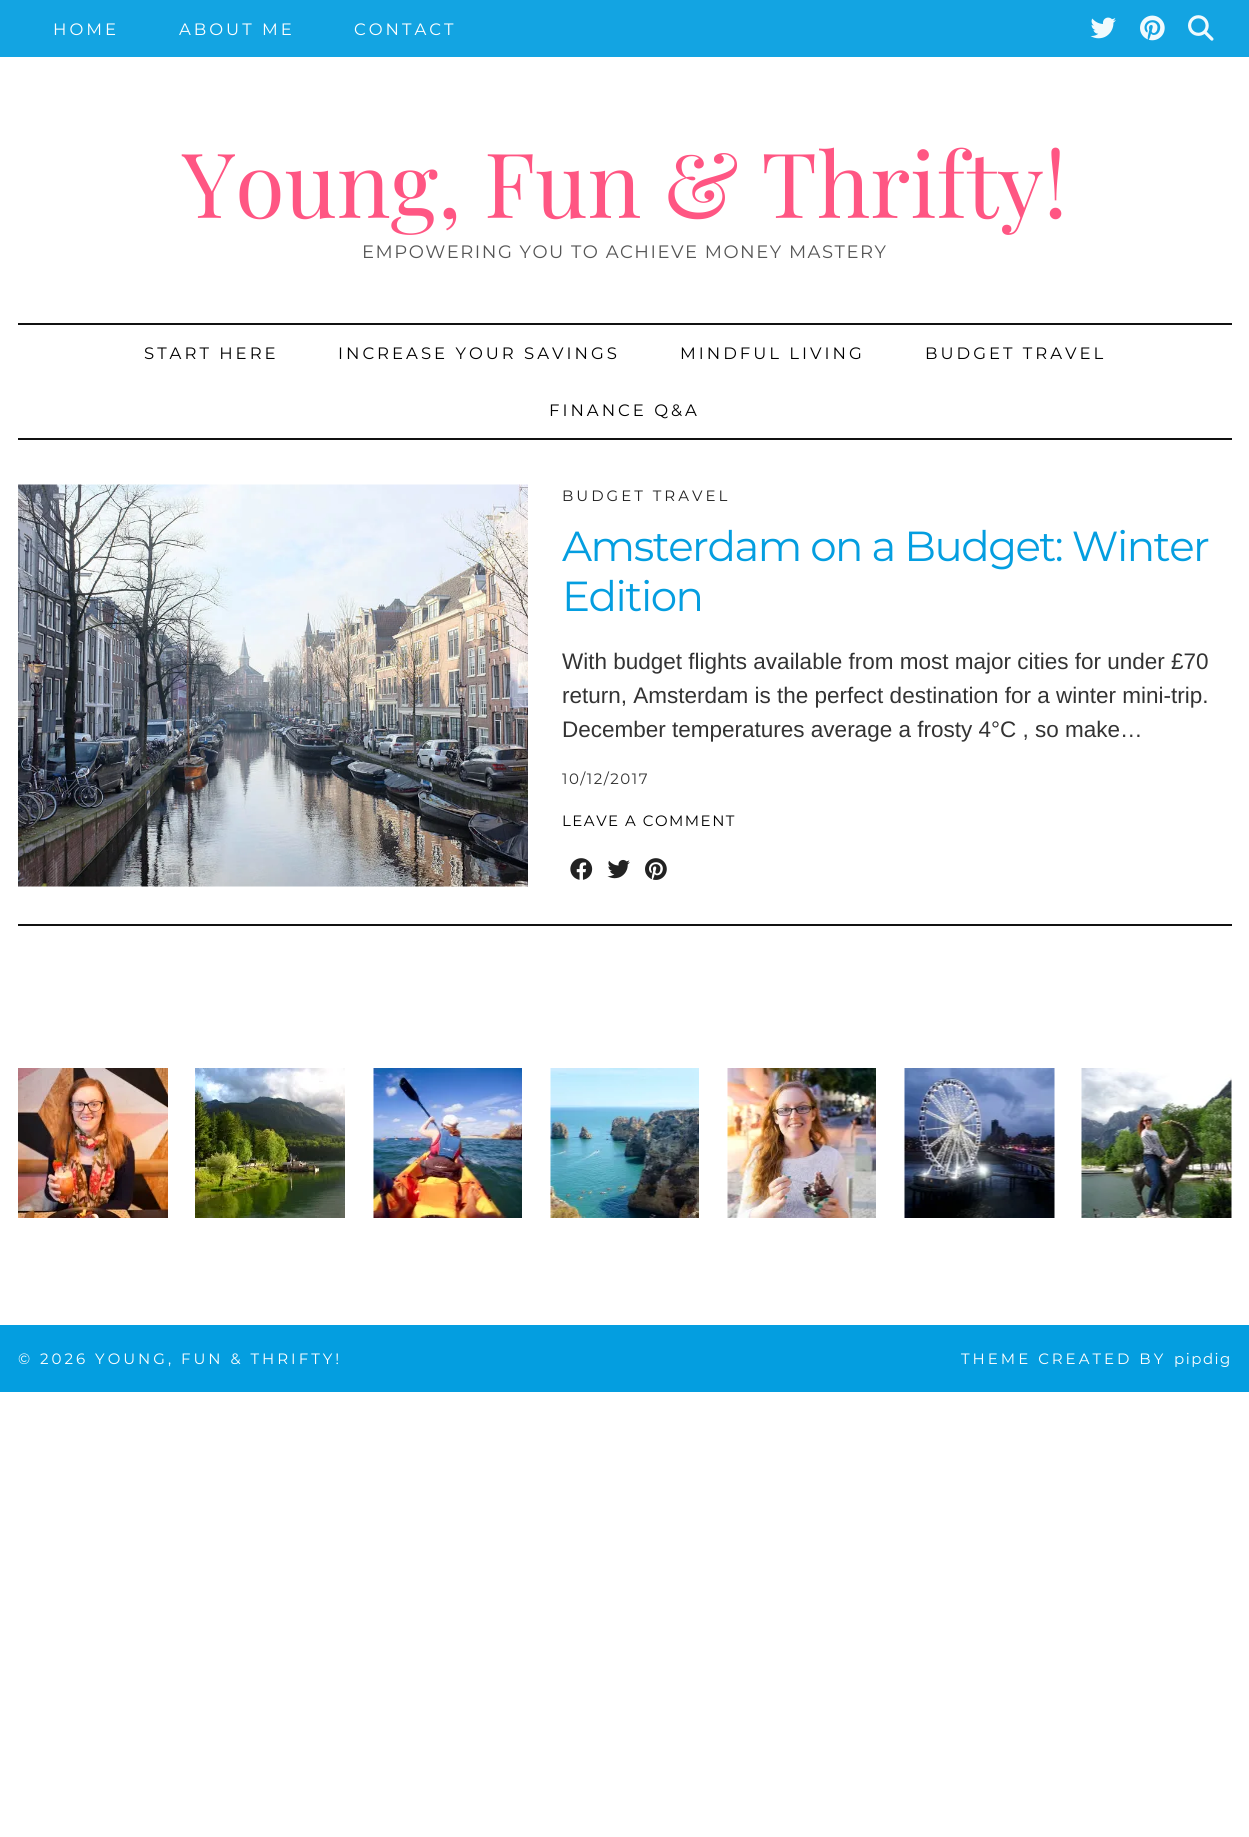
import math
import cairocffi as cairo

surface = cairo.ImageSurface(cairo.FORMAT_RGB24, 1249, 1837)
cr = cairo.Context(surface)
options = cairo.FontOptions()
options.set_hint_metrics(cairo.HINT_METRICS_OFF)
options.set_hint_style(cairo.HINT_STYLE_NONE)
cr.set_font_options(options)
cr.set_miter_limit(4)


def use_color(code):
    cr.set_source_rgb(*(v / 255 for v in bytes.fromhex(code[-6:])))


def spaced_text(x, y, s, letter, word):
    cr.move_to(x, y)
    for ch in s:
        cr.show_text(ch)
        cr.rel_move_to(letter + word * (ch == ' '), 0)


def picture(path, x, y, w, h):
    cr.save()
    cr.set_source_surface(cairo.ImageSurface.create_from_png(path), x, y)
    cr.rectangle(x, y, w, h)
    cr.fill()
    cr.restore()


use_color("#ffffff")
cr.paint()
use_color("#13a4e2")
cr.rectangle(0, 0, 1249, 57)
cr.fill()
cr.select_font_face("Montserrat Thin")
cr.set_font_size(16.5)
use_color("#ffffff")
spaced_text(53, 35, "HOME", 3, 0)
spaced_text(179, 35, "ABOUT ME", 3, 0)
spaced_text(354, 35, "CONTACT", 3, 0)
picture("img1.png", 1090, 17, 26, 22)
picture("img2.png", 1140, 15, 25, 26)
picture("img3.png", 1188, 15, 26, 26)
cr.select_font_face("Playfair Display")
cr.set_font_size(90)
use_color("#ff5683")
cr.move_to(182, 218)
cr.show_text("Young, Fun & Thrifty!")
cr.select_font_face("Montserrat Thin")
cr.set_font_size(18)
use_color("#555555")
spaced_text(362, 258, "EMPOWERING YOU TO ACHIEVE MONEY MASTERY", 1.5, 0)
use_color("#111111")
cr.rectangle(18, 323, 1214, 2)
cr.fill()
cr.rectangle(18, 438, 1214, 2)
cr.fill()
cr.set_font_size(16.5)
use_color("#000000")
spaced_text(144, 359, "START HERE", 3, 0)
spaced_text(338, 359, "INCREASE YOUR SAVINGS", 3, 0)
spaced_text(680, 359, "MINDFUL LIVING", 3, 0)
spaced_text(925, 359, "BUDGET TRAVEL", 3, 0)
spaced_text(549, 416, "FINANCE Q&A", 3, 0)
use_color("#111111")
cr.rectangle(18, 924, 1214, 2)
cr.fill()
picture("img4.png", 18, 484, 510, 403)
cr.set_font_size(15)
use_color("#222222")
spaced_text(562, 501, "BUDGET TRAVEL", 3, 0)
cr.set_font_size(42)
use_color("#049ee0")
spaced_text(562, 561, "Amsterdam on a Budget: Winter", -1.5, 0)
spaced_text(562, 611, "Edition", -1.5, 0)
cr.select_font_face("Liberation Sans")
cr.set_font_size(22.5)
use_color("#333333")
cr.move_to(562, 669)
cr.show_text("With budget flights available from most major cities for under £70")
cr.move_to(562, 703)
cr.show_text("return, Amsterdam is the perfect destination for a winter mini-trip.")
cr.move_to(562, 737)
cr.show_text("December temperatures average a frosty 4°C , so make…")
cr.select_font_face("Montserrat Thin")
cr.set_font_size(15)
spaced_text(562, 784, "10/12/2017", 1.5, 0)
use_color("#000000")
spaced_text(562, 826, "LEAVE A COMMENT", 1.5, 0)
picture("img5.png", 570, 858, 23, 22)
picture("img6.png", 607, 859, 23, 20)
picture("img7.png", 645, 858, 22, 22)
picture("img8.png", 18, 1068, 150, 150)
picture("img9.png", 195, 1068, 150, 150)
picture("img10.png", 373, 1068, 149, 150)
picture("img11.png", 550, 1068, 149, 150)
picture("img12.png", 727, 1068, 149, 150)
picture("img13.png", 904, 1068, 151, 150)
picture("img14.png", 1081, 1068, 151, 150)
use_color("#049ee0")
cr.rectangle(0, 1325, 1249, 67)
cr.fill()
use_color("#ffffff")
spaced_text(18, 1364, "© 2026 YOUNG, FUN & THRIFTY!", 3, 0)
spaced_text(961, 1364, "THEME CREATED BY", 3, 0)
spaced_text(1174, 1364, "pipdig", 1.5, 0)
surface.write_to_png("result.png")
